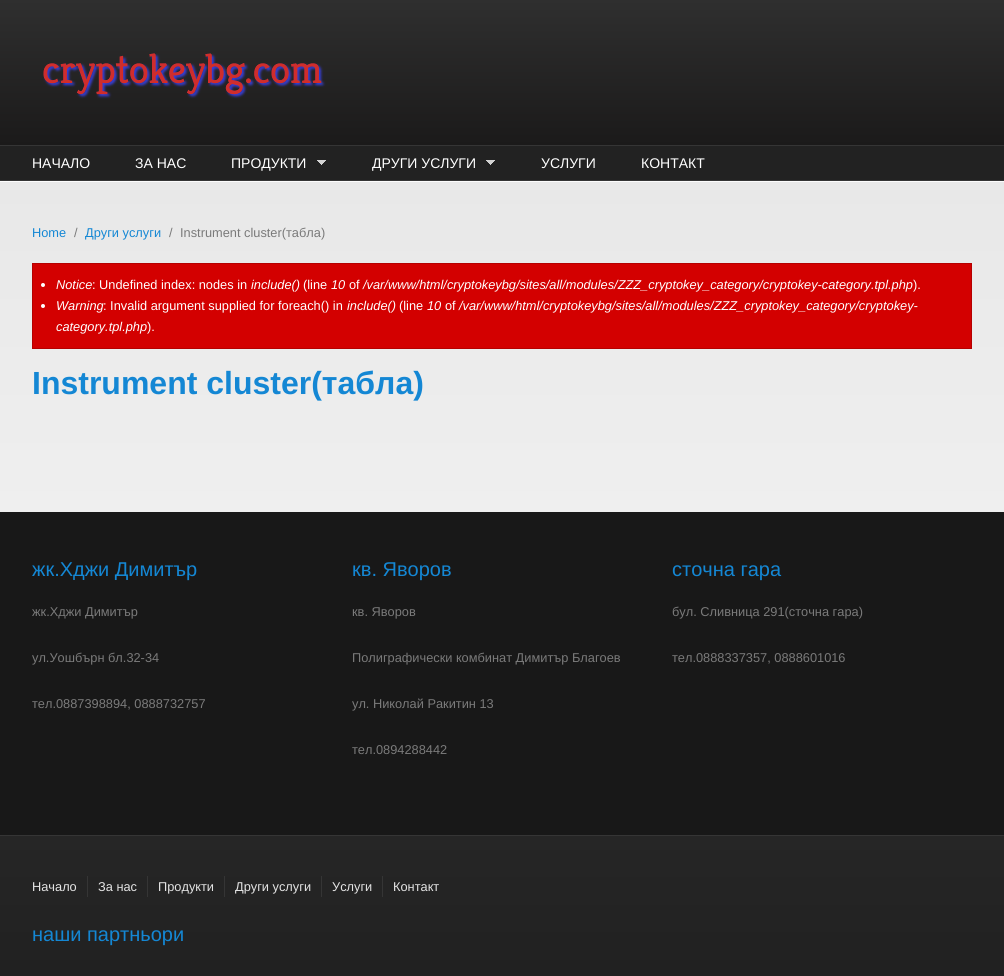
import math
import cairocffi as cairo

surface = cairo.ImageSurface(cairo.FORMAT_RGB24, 1004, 976)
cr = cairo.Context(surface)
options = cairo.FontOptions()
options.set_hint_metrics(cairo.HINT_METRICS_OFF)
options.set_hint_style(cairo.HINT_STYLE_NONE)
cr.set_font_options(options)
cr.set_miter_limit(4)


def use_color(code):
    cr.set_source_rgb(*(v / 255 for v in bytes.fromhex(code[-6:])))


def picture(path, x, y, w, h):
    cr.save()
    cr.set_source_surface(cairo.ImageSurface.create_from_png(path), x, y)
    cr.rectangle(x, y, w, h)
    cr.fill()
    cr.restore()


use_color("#ffffff")
cr.paint()
gradient = cairo.LinearGradient(502, 0, 502, 145)
gradient.add_color_stop_rgba(0, 0.184, 0.184, 0.184, 1)
gradient.add_color_stop_rgba(1, 0.106, 0.102, 0.102, 1)
cr.set_source(gradient)
cr.rectangle(0, 0, 1004, 145)
cr.fill()
picture("img1.png", 43, 53, 283, 46)
use_color("#222222")
cr.rectangle(0, 146, 1004, 34)
cr.fill()
use_color("#353535")
cr.rectangle(0, 145, 1004, 1)
cr.fill()
cr.rectangle(0, 180, 1004, 1)
cr.fill()
cr.select_font_face("Liberation Sans")
cr.set_font_size(14)
use_color("#ffffff")
cr.move_to(32, 168)
cr.show_text("НАЧАЛО")
cr.move_to(135, 168)
cr.show_text("ЗА НАС")
cr.move_to(231, 168)
cr.show_text("ПРОДУКТИ")
picture("img2.png", 317, 160, 9, 5)
cr.move_to(372, 168)
cr.show_text("ДРУГИ УСЛУГИ")
picture("img2.png", 486, 160, 9, 5)
cr.move_to(541, 168)
cr.show_text("УСЛУГИ")
cr.move_to(641, 168)
cr.show_text("КОНТАКТ")
use_color("#fcfcfc")
cr.rectangle(0, 181, 1004, 1)
cr.fill()
gradient = cairo.LinearGradient(502, 182, 502, 512)
gradient.add_color_stop_rgba(0, 0.91, 0.91, 0.91, 1)
gradient.add_color_stop_rgba(1, 0.937, 0.937, 0.937, 1)
cr.set_source(gradient)
cr.rectangle(0, 182, 1004, 330)
cr.fill()
cr.set_font_size(12.8)
use_color("#1487d4")
cr.move_to(32, 237)
cr.show_text("Home")
use_color("#7a7a7a")
cr.move_to(74, 237)
cr.show_text("/")
use_color("#1487d4")
cr.move_to(85, 237)
cr.show_text("Други услуги")
use_color("#7a7a7a")
cr.move_to(169, 237)
cr.show_text("/")
cr.move_to(180, 237)
cr.show_text("Instrument cluster(табла)")
use_color("#d30000")
cr.rectangle(32.5, 263.5, 939, 85)
cr.fill_preserve()
use_color("#b50000")
cr.set_line_width(1)
cr.stroke()
use_color("#ffffff")
cr.arc(43, 285, 2, 0, 2 * math.pi)
cr.fill()
cr.select_font_face("Liberation Sans", cairo.FONT_SLANT_ITALIC)
cr.move_to(56, 289)
cr.show_text("Notice")
cr.select_font_face("Liberation Sans")
cr.move_to(92, 289)
cr.show_text(": Undefined index: nodes in")
cr.select_font_face("Liberation Sans", cairo.FONT_SLANT_ITALIC)
cr.move_to(251, 289)
cr.show_text("include()")
cr.select_font_face("Liberation Sans")
cr.move_to(303, 289)
cr.show_text("(line")
cr.select_font_face("Liberation Sans", cairo.FONT_SLANT_ITALIC)
cr.move_to(331, 289)
cr.show_text("10")
cr.select_font_face("Liberation Sans")
cr.move_to(349, 289)
cr.show_text("of")
cr.select_font_face("Liberation Sans", cairo.FONT_SLANT_ITALIC)
cr.move_to(363, 289)
cr.show_text("/var/www/html/cryptokeybg/sites/all/modules/ZZZ_cryptokey_category/cryptokey-category.tpl.php")
cr.select_font_face("Liberation Sans")
cr.move_to(913, 289)
cr.show_text(").")
cr.new_path()
cr.arc(43, 306, 2, 0, 2 * math.pi)
cr.fill()
cr.select_font_face("Liberation Sans", cairo.FONT_SLANT_ITALIC)
cr.move_to(56, 310)
cr.show_text("Warning")
cr.select_font_face("Liberation Sans")
cr.move_to(103, 310)
cr.show_text(": Invalid argument supplied for foreach() in")
cr.select_font_face("Liberation Sans", cairo.FONT_SLANT_ITALIC)
cr.move_to(347, 310)
cr.show_text("include()")
cr.select_font_face("Liberation Sans")
cr.move_to(399, 310)
cr.show_text("(line")
cr.select_font_face("Liberation Sans", cairo.FONT_SLANT_ITALIC)
cr.move_to(427, 310)
cr.show_text("10")
cr.select_font_face("Liberation Sans")
cr.move_to(445, 310)
cr.show_text("of")
cr.select_font_face("Liberation Sans", cairo.FONT_SLANT_ITALIC)
cr.move_to(459, 310)
cr.show_text("/var/www/html/cryptokeybg/sites/all/modules/ZZZ_cryptokey_category/cryptokey-")
cr.move_to(56, 331)
cr.show_text("category.tpl.php")
cr.select_font_face("Liberation Sans")
cr.move_to(147, 331)
cr.show_text(").")
cr.select_font_face("Liberation Sans", cairo.FONT_SLANT_NORMAL, cairo.FONT_WEIGHT_BOLD)
cr.set_font_size(32)
use_color("#1487d4")
cr.move_to(32, 394)
cr.show_text("Instrument cluster(табла)")
use_color("#181818")
cr.rectangle(0, 512, 1004, 323)
cr.fill()
cr.select_font_face("Liberation Sans")
cr.set_font_size(20)
use_color("#1487d4")
cr.move_to(32, 576)
cr.show_text("жк.Хджи Димитър")
cr.set_font_size(12.8)
use_color("#7a7a7a")
cr.move_to(32, 616)
cr.show_text("жк.Хджи Димитър")
cr.move_to(32, 662)
cr.show_text("ул.Уошбърн бл.32-34")
cr.move_to(32, 708)
cr.show_text("тел.0887398894, 0888732757")
cr.set_font_size(20)
use_color("#1487d4")
cr.move_to(352, 576)
cr.show_text("кв. Яворов")
cr.set_font_size(12.8)
use_color("#7a7a7a")
cr.move_to(352, 616)
cr.show_text("кв. Яворов")
cr.move_to(352, 662)
cr.show_text("Полиграфически комбинат Димитър Благоев")
cr.move_to(352, 708)
cr.show_text("ул. Николай Ракитин 13")
cr.move_to(352, 754)
cr.show_text("тел.0894288442")
cr.set_font_size(20)
use_color("#1487d4")
cr.move_to(672, 576)
cr.show_text("сточна гара")
cr.set_font_size(12.8)
use_color("#7a7a7a")
cr.move_to(672, 616)
cr.show_text("бул. Сливница 291(сточна гара)")
cr.move_to(672, 662)
cr.show_text("тел.0888337357, 0888601016")
gradient = cairo.LinearGradient(502, 836, 502, 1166)
gradient.add_color_stop_rgba(0, 0.149, 0.149, 0.149, 1)
gradient.add_color_stop_rgba(1, 0.102, 0.102, 0.102, 1)
cr.set_source(gradient)
cr.rectangle(0, 836, 1004, 140)
cr.fill()
use_color("#353535")
cr.rectangle(0, 835, 1004, 1)
cr.fill()
cr.rectangle(87, 876, 1, 21)
cr.fill()
use_color("#e4e4e4")
cr.move_to(32, 891)
cr.show_text("Начало")
use_color("#353535")
cr.rectangle(147, 876, 1, 21)
cr.fill()
use_color("#e4e4e4")
cr.move_to(98, 891)
cr.show_text("За нас")
use_color("#353535")
cr.rectangle(224, 876, 1, 21)
cr.fill()
use_color("#e4e4e4")
cr.move_to(158, 891)
cr.show_text("Продукти")
use_color("#353535")
cr.rectangle(321, 876, 1, 21)
cr.fill()
use_color("#e4e4e4")
cr.move_to(235, 891)
cr.show_text("Други услуги")
use_color("#353535")
cr.rectangle(382, 876, 1, 21)
cr.fill()
use_color("#e4e4e4")
cr.move_to(332, 891)
cr.show_text("Услуги")
cr.move_to(393, 891)
cr.show_text("Контакт")
cr.set_font_size(20)
use_color("#1487d4")
cr.move_to(32, 941)
cr.show_text("наши партньори")
surface.write_to_png("result.png")
